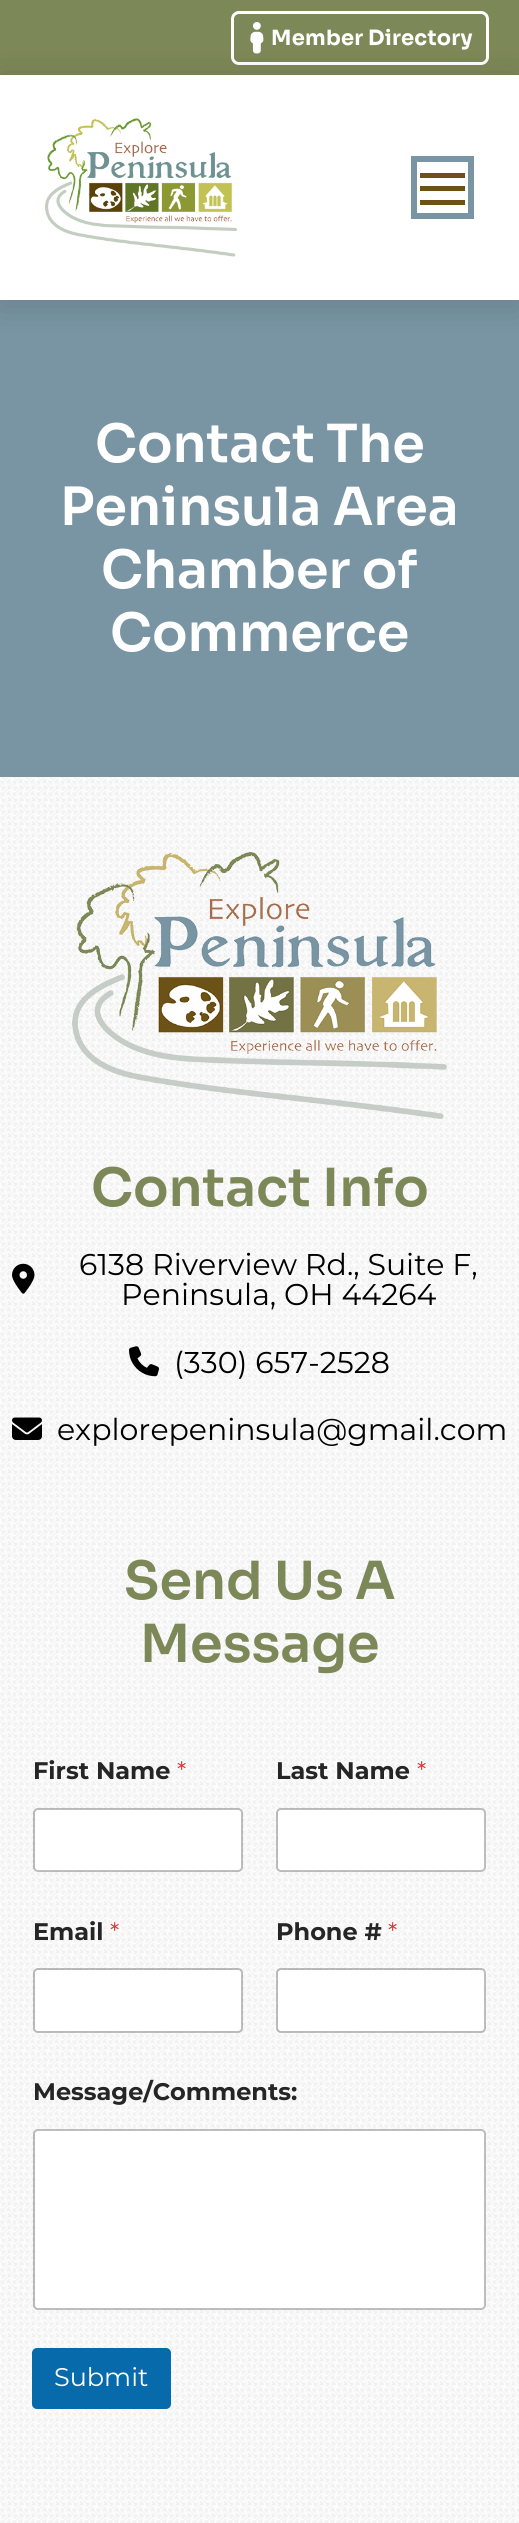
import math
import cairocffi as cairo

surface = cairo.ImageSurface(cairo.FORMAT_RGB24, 519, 2523)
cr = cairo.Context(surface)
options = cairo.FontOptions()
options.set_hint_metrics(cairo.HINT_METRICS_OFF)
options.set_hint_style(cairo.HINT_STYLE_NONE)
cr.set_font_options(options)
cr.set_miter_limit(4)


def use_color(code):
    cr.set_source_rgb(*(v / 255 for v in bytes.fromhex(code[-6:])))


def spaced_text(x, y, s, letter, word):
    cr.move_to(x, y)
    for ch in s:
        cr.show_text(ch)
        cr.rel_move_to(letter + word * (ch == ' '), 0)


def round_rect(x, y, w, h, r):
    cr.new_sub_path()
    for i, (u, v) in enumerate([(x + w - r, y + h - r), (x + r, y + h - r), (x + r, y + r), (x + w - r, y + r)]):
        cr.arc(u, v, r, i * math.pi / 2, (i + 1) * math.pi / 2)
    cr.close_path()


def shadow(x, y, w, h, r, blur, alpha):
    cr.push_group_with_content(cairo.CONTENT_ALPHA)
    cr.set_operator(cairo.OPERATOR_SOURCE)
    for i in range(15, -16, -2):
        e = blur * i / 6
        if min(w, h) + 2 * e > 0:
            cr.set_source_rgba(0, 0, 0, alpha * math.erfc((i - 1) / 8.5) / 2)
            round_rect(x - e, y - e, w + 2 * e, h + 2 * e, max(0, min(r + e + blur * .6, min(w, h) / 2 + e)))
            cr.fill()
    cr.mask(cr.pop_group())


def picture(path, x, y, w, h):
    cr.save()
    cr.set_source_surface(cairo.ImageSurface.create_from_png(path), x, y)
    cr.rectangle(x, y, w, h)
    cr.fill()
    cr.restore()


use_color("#7995a3")
cr.paint()
use_color("#7d8858")
cr.rectangle(0, 0, 519, 75)
cr.fill()
round_rect(232.5, 12.5, 255, 51, 6.5)
use_color("#ffffff")
cr.set_line_width(3)
cr.stroke()
picture("img2.png", 250, 22, 14, 32)
use_color("#000000")
shadow(0, 80, 519, 225, 0, 19, 0.15)
use_color("#ffffff")
cr.rectangle(0, 75, 519, 225)
cr.fill()
picture("img1.png", 45, 118, 192, 139)
cr.rectangle(414, 159, 57, 57)
use_color("#7995a3")
cr.set_line_width(6)
cr.stroke()
use_color("#6d5217")
cr.rectangle(420, 173, 45, 5)
cr.fill()
cr.rectangle(420, 186, 45, 5)
cr.fill()
cr.rectangle(420, 200, 45, 5)
cr.fill()
cr.select_font_face("Sora", cairo.FONT_SLANT_NORMAL, cairo.FONT_WEIGHT_BOLD)
cr.set_font_size(21)
use_color("#ffffff")
spaced_text(271, 45, "Member Directory", 0.25, 0)
cr.select_font_face("Sora SemiBold")
cr.set_font_size(52.5)
cr.move_to(95, 462)
cr.show_text("Contact The")
cr.move_to(60, 525)
cr.show_text("Peninsula Area")
cr.move_to(101, 588)
cr.show_text("Chamber of")
cr.move_to(110, 651)
cr.show_text("Commerce")
picture("img3.png", 0, 777, 519, 1746)
picture("img4.png", 72, 852, 375, 267)
use_color("#7d8858")
cr.move_to(91, 1206)
cr.show_text("Contact Info")
picture("img5.png", 12, 1263, 23, 31)
cr.select_font_face("Montserrat")
cr.set_font_size(30)
use_color("#000000")
cr.move_to(79, 1275)
cr.show_text("6138 Riverview Rd., Suite F,")
cr.move_to(121, 1305)
cr.show_text("Peninsula, OH 44264")
picture("img6.png", 129, 1346, 30, 31)
cr.move_to(174, 1373)
cr.show_text("(330) 657-2528")
picture("img7.png", 12, 1417, 30, 23)
cr.move_to(57, 1440)
cr.show_text("explorepeninsula@gmail.com")
cr.select_font_face("Sora SemiBold")
cr.set_font_size(52.5)
use_color("#7d8858")
cr.move_to(124, 1599)
cr.show_text("Send Us A")
cr.move_to(140, 1662)
cr.show_text("Message")
cr.select_font_face("Montserrat", cairo.FONT_SLANT_NORMAL, cairo.FONT_WEIGHT_BOLD)
cr.set_font_size(24)
use_color("#252525")
cr.move_to(33, 1779)
cr.show_text("First Name")
cr.select_font_face("Montserrat")
use_color("#d63637")
cr.move_to(177, 1779)
cr.show_text("*")
use_color("#ffffff")
round_rect(35, 1809, 207, 62, 3)
cr.fill()
round_rect(34, 1809, 208, 62, 4)
cr.set_source_rgba(0, 0, 0, 0.25)
cr.set_line_width(2)
cr.stroke()
cr.select_font_face("Montserrat", cairo.FONT_SLANT_NORMAL, cairo.FONT_WEIGHT_BOLD)
use_color("#252525")
cr.move_to(276, 1779)
cr.show_text("Last Name")
cr.select_font_face("Montserrat")
use_color("#d63637")
cr.move_to(417, 1779)
cr.show_text("*")
use_color("#ffffff")
round_rect(278, 1809, 207, 62, 3)
cr.fill()
round_rect(277, 1809, 208, 62, 4)
cr.set_source_rgba(0, 0, 0, 0.25)
cr.stroke()
cr.select_font_face("Montserrat", cairo.FONT_SLANT_NORMAL, cairo.FONT_WEIGHT_BOLD)
use_color("#252525")
cr.move_to(33, 1940)
cr.show_text("Email")
cr.select_font_face("Montserrat")
use_color("#d63637")
cr.move_to(110, 1940)
cr.show_text("*")
use_color("#ffffff")
round_rect(35, 1970, 207, 61, 3)
cr.fill()
round_rect(34, 1969, 208, 63, 4)
cr.set_source_rgba(0, 0, 0, 0.25)
cr.stroke()
cr.select_font_face("Montserrat", cairo.FONT_SLANT_NORMAL, cairo.FONT_WEIGHT_BOLD)
use_color("#252525")
cr.move_to(276, 1940)
cr.show_text("Phone #")
cr.select_font_face("Montserrat")
use_color("#d63637")
cr.move_to(388, 1940)
cr.show_text("*")
use_color("#ffffff")
round_rect(278, 1970, 207, 61, 3)
cr.fill()
round_rect(277, 1969, 208, 63, 4)
cr.set_source_rgba(0, 0, 0, 0.25)
cr.stroke()
cr.select_font_face("Montserrat", cairo.FONT_SLANT_NORMAL, cairo.FONT_WEIGHT_BOLD)
use_color("#252525")
cr.move_to(33, 2100)
cr.show_text("Message/Comments:")
use_color("#ffffff")
round_rect(35, 2130, 450, 179, 3)
cr.fill()
round_rect(34, 2130, 451, 179, 4)
cr.set_source_rgba(0, 0, 0, 0.25)
cr.stroke()
use_color("#066aab")
round_rect(32, 2348, 139, 61, 5)
cr.fill()
cr.select_font_face("Montserrat")
cr.set_font_size(25.5)
use_color("#ffffff")
cr.move_to(54, 2386)
cr.show_text("Submit")
surface.write_to_png("result.png")
